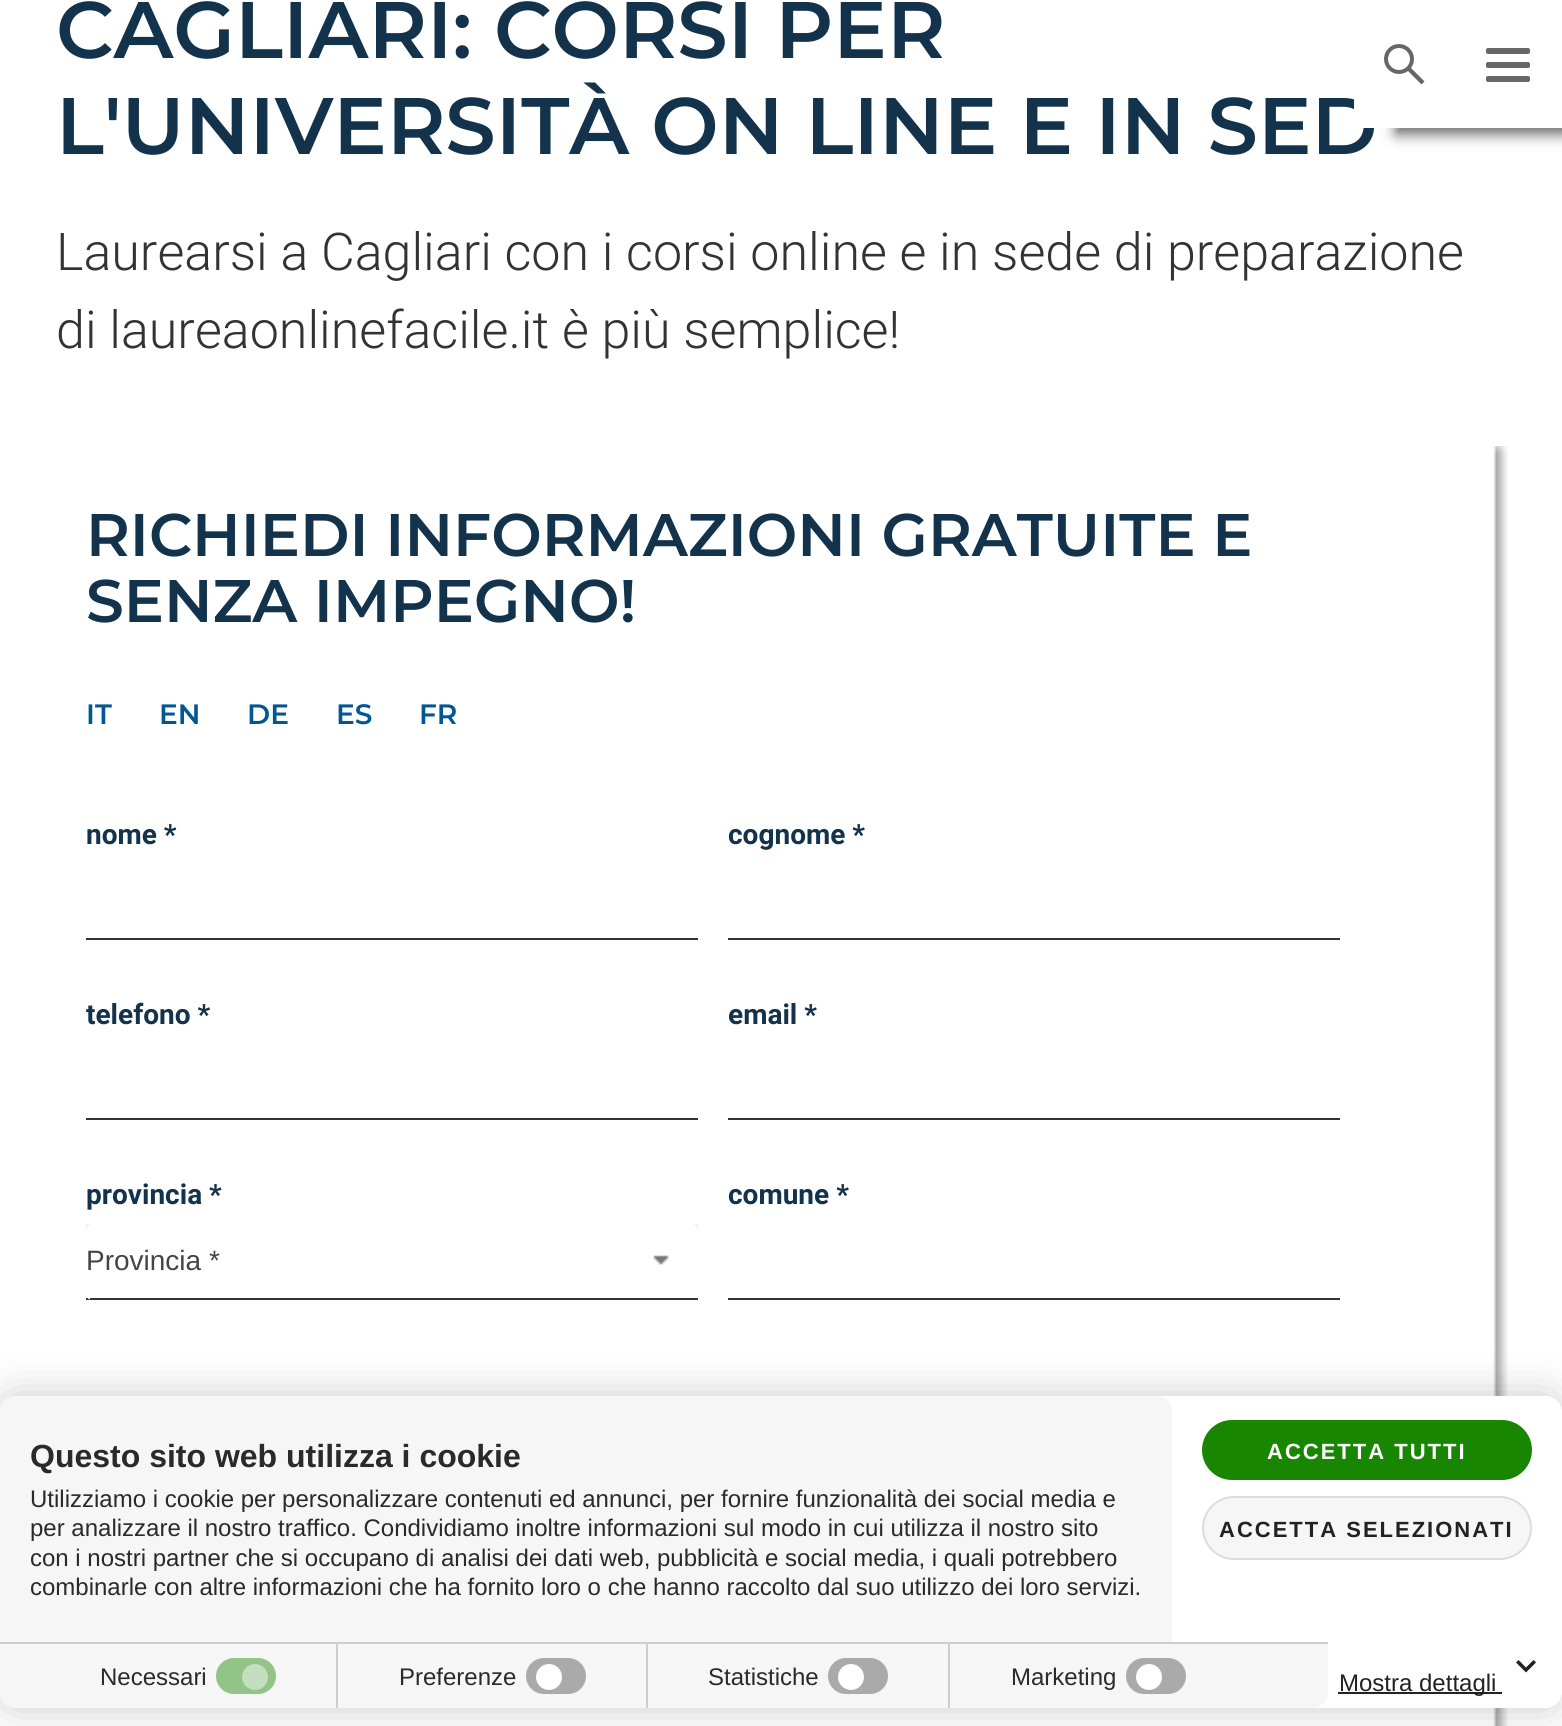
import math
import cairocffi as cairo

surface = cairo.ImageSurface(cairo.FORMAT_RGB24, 1562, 1726)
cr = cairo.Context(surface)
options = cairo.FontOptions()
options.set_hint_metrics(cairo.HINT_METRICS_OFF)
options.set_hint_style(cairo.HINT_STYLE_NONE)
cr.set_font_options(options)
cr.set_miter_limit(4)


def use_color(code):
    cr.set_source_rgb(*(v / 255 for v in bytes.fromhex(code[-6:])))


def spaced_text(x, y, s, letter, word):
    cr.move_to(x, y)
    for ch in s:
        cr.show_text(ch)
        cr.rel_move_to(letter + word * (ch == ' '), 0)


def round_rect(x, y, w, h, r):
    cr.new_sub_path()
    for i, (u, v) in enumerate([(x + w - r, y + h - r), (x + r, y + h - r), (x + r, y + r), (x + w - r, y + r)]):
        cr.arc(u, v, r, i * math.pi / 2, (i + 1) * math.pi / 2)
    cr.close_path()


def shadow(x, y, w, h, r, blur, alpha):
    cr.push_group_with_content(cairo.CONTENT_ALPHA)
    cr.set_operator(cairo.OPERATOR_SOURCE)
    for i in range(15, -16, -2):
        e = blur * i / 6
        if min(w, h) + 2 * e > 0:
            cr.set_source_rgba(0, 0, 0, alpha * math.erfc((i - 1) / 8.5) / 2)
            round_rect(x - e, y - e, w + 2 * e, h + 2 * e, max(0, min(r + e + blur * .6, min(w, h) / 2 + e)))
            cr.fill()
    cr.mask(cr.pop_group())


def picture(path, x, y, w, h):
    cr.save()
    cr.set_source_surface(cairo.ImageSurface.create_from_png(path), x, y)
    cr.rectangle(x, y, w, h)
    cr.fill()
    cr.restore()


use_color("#ffffff")
cr.paint()
use_color("#666666")
shadow(1396, 14, 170, 120, 0, 7, 1)
cr.select_font_face("Montserrat SemiBold")
cr.set_font_size(80)
use_color("#13334c")
cr.move_to(56, 154)
cr.show_text("L'UNIVERSITÀ ON LINE E IN SED")
use_color("#ffffff")
cr.rectangle(1354, 0, 208, 128)
cr.fill()
cr.arc(1399, 59, 13, 0, 2 * math.pi)
use_color("#666666")
cr.set_line_width(4)
cr.stroke()
cr.new_path()
cr.move_to(1410.5, 67.5)
cr.line_to(1424.5, 81.5)
cr.line_to(1421.5, 84.5)
cr.line_to(1407.5, 70.5)
cr.close_path()
cr.fill()
round_rect(1486, 48, 44, 6, 2)
cr.fill()
round_rect(1486, 62, 44, 6, 2)
cr.fill()
round_rect(1486, 76, 44, 6, 2)
cr.fill()
use_color("#13334c")
cr.move_to(56, 58)
cr.show_text("CAGLIARI: CORSI PER")
cr.select_font_face("Roboto Light")
cr.set_font_size(52)
use_color("#333333")
cr.move_to(56, 270)
cr.show_text("Laurearsi a Cagliari con i corsi online e in sede di preparazione")
cr.move_to(56, 348)
cr.show_text("di laureaonlinefacile.it è più semplice!")
picture("img1.png", 1493, 446, 15, 1280)
cr.select_font_face("Montserrat SemiBold")
cr.set_font_size(60)
use_color("#13334c")
cr.move_to(86, 556)
cr.show_text("RICHIEDI INFORMAZIONI GRATUITE E")
cr.move_to(86, 622)
cr.show_text("SENZA IMPEGNO!")
cr.set_font_size(28)
use_color("#005792")
cr.move_to(86, 724)
cr.show_text("IT")
cr.move_to(159, 724)
cr.show_text("EN")
cr.move_to(247, 724)
cr.show_text("DE")
cr.move_to(336, 724)
cr.show_text("ES")
cr.move_to(419, 724)
cr.show_text("FR")
cr.select_font_face("Roboto", cairo.FONT_SLANT_NORMAL, cairo.FONT_WEIGHT_BOLD)
use_color("#13334c")
cr.move_to(86, 844)
cr.show_text("nome *")
use_color("#333333")
cr.rectangle(86, 938, 612, 2)
cr.fill()
use_color("#13334c")
cr.move_to(728, 844)
cr.show_text("cognome *")
use_color("#333333")
cr.rectangle(728, 938, 612, 2)
cr.fill()
use_color("#13334c")
cr.move_to(86, 1024)
cr.show_text("telefono *")
use_color("#333333")
cr.rectangle(86, 1118, 612, 2)
cr.fill()
use_color("#13334c")
cr.move_to(728, 1024)
cr.show_text("email *")
use_color("#333333")
cr.rectangle(728, 1118, 612, 2)
cr.fill()
use_color("#13334c")
cr.move_to(86, 1204)
cr.show_text("provincia *")
use_color("#efefef")
cr.rectangle(86, 1224, 612, 74)
cr.fill()
use_color("#333333")
cr.rectangle(86, 1298, 612, 2)
cr.fill()
use_color("#ffffff")
round_rect(86, 1224, 612, 76, 6)
cr.fill()
use_color("#333333")
cr.rectangle(90, 1298, 606, 2)
cr.fill()
cr.select_font_face("Liberation Sans")
use_color("#454545")
cr.move_to(86, 1270)
cr.show_text("Provincia *")
picture("img2.png", 653, 1255, 16, 10)
cr.select_font_face("Roboto", cairo.FONT_SLANT_NORMAL, cairo.FONT_WEIGHT_BOLD)
use_color("#13334c")
cr.move_to(728, 1204)
cr.show_text("comune *")
use_color("#333333")
cr.rectangle(728, 1298, 612, 2)
cr.fill()
use_color("#000000")
shadow(-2, 1394, 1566, 316, 18, 20, 0.2)
use_color("#ffffff")
round_rect(0, 1396, 1562, 312, 16)
cr.fill()
use_color("#f6f6f6")
cr.new_path()
cr.move_to(16, 1396)
cr.line_to(1156, 1396)
cr.curve_to(1165, 1396, 1172, 1403, 1172, 1412)
cr.line_to(1172, 1642)
cr.line_to(0, 1642)
cr.line_to(0, 1412)
cr.curve_to(0, 1403, 7, 1396, 16, 1396)
cr.close_path()
cr.fill()
cr.select_font_face("Liberation Sans", cairo.FONT_SLANT_NORMAL, cairo.FONT_WEIGHT_BOLD)
cr.set_font_size(32)
use_color("#2a2a2a")
cr.move_to(30, 1467)
cr.show_text("Questo sito web utilizza i cookie")
cr.select_font_face("Liberation Sans")
cr.set_font_size(24)
cr.move_to(30, 1507)
cr.show_text("Utilizziamo i cookie per personalizzare contenuti ed annunci, per fornire funzionalità dei social media e")
cr.move_to(30, 1536)
cr.show_text("per analizzare il nostro traffico. Condividiamo inoltre informazioni sul modo in cui utilizza il nostro sito")
cr.move_to(30, 1566)
cr.show_text("con i nostri partner che si occupano di analisi dei dati web, pubblicità e social media, i quali potrebbero")
cr.move_to(30, 1595)
cr.show_text("combinarle con altre informazioni che ha fornito loro o che hanno raccolto dal suo utilizzo dei loro servizi.")
use_color("#188600")
round_rect(1202, 1420, 330, 60, 30)
cr.fill()
cr.select_font_face("Liberation Sans", cairo.FONT_SLANT_NORMAL, cairo.FONT_WEIGHT_BOLD)
cr.set_font_size(22)
use_color("#ffffff")
spaced_text(1267, 1459, "ACCETTA TUTTI", 2, 0)
use_color("#f6f6f6")
round_rect(1203, 1497, 328, 62, 31)
cr.fill_preserve()
use_color("#dddddd")
cr.set_line_width(2)
cr.stroke()
use_color("#222222")
spaced_text(1219, 1537, "ACCETTA SELEZIONATI", 2, 0)
use_color("#f6f6f6")
cr.new_path()
cr.move_to(0, 1642)
cr.line_to(1328, 1642)
cr.line_to(1328, 1692)
cr.curve_to(1328, 1701, 1321, 1708, 1312, 1708)
cr.line_to(16, 1708)
cr.curve_to(7, 1708, 0, 1701, 0, 1692)
cr.close_path()
cr.fill()
use_color("#cccccc")
cr.rectangle(0, 1642, 1328, 2)
cr.fill()
cr.rectangle(336, 1644, 2, 64)
cr.fill()
cr.select_font_face("Liberation Sans")
cr.set_font_size(24)
use_color("#2a2a2a")
cr.move_to(100, 1685)
cr.show_text("Necessari")
use_color("#92c487")
round_rect(216, 1658, 60, 36, 18)
cr.fill()
use_color("#c3dfbd")
cr.arc(255, 1677, 13, 0, 2 * math.pi)
cr.fill()
use_color("#cccccc")
cr.rectangle(646, 1644, 2, 64)
cr.fill()
use_color("#2a2a2a")
cr.move_to(399, 1685)
cr.show_text("Preferenze")
use_color("#aaaaaa")
round_rect(526, 1658, 60, 36, 18)
cr.fill()
use_color("#ffffff")
cr.arc(549, 1677, 13, 0, 2 * math.pi)
cr.fill()
use_color("#cccccc")
cr.rectangle(948, 1644, 2, 64)
cr.fill()
use_color("#2a2a2a")
cr.move_to(708, 1685)
cr.show_text("Statistiche")
use_color("#aaaaaa")
round_rect(828, 1658, 60, 36, 18)
cr.fill()
use_color("#ffffff")
cr.arc(851, 1677, 13, 0, 2 * math.pi)
cr.fill()
use_color("#2a2a2a")
cr.move_to(1011, 1685)
cr.show_text("Marketing")
use_color("#aaaaaa")
round_rect(1126, 1658, 60, 36, 18)
cr.fill()
use_color("#ffffff")
cr.arc(1149, 1677, 13, 0, 2 * math.pi)
cr.fill()
use_color("#222222")
cr.set_fill_rule(cairo.FILL_RULE_EVEN_ODD)
cr.new_path()
cr.move_to(1518.5, 1660)
cr.line_to(1526, 1667.5)
cr.line_to(1533.5, 1660)
cr.line_to(1536, 1662.5)
cr.line_to(1526, 1672.5)
cr.line_to(1516, 1662.5)
cr.close_path()
cr.fill()
cr.rectangle(1338, 1692, 164, 2)
cr.fill()
cr.move_to(1339, 1691)
cr.show_text("Mostra dettagli")
surface.write_to_png("result.png")
